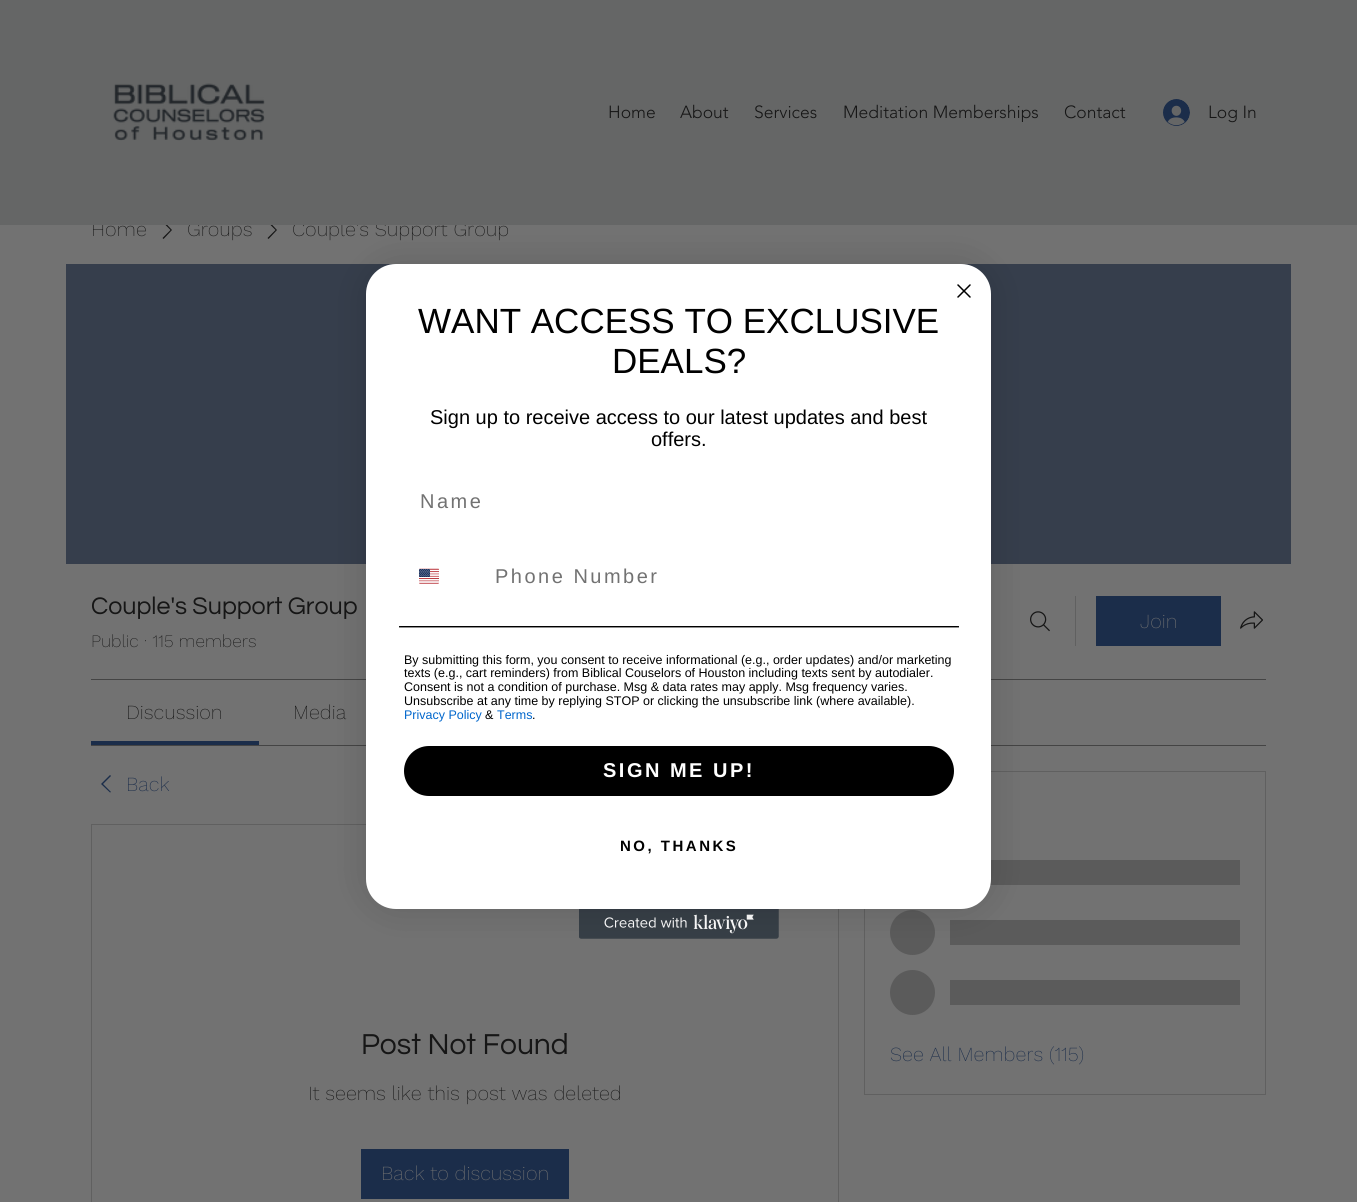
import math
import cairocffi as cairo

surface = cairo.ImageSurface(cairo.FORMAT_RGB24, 1357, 1202)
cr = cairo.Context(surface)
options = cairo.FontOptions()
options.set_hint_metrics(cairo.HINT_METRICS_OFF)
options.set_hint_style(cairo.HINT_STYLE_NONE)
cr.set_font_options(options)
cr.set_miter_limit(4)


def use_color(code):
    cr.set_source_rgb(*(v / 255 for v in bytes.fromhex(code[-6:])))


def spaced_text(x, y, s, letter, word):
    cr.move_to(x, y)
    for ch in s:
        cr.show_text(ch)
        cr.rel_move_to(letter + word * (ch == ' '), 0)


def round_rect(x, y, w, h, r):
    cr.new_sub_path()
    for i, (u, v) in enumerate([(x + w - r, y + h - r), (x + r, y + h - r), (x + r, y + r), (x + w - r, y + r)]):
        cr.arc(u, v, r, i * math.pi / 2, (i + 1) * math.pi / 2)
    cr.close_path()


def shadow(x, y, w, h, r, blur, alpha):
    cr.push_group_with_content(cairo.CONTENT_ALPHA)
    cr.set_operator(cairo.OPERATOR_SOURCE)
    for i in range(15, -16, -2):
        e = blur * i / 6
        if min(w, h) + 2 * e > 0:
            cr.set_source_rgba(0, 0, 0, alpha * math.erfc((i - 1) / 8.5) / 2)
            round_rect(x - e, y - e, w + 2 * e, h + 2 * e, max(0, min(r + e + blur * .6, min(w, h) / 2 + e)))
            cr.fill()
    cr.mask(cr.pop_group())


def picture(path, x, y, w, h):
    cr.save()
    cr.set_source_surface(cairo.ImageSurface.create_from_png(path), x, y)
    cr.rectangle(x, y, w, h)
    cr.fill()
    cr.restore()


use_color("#727272")
cr.paint()
cr.select_font_face("Work Sans ExtraLight")
cr.set_font_size(20)
use_color("#161616")
cr.move_to(91, 236)
cr.show_text("Home")
cr.set_fill_rule(cairo.FILL_RULE_EVEN_ODD)
cr.new_path()
cr.move_to(163.5, 221)
cr.line_to(172, 230)
cr.line_to(163.5, 239)
cr.line_to(162.5, 238)
cr.line_to(170.5, 230)
cr.line_to(162.5, 222)
cr.close_path()
cr.fill()
cr.move_to(187, 236)
cr.show_text("Groups")
cr.new_path()
cr.move_to(268.5, 221)
cr.line_to(277, 230)
cr.line_to(268.5, 239)
cr.line_to(267.5, 238)
cr.line_to(275.5, 230)
cr.line_to(267.5, 222)
cr.close_path()
cr.fill()
cr.move_to(292, 236)
cr.show_text("Couple's Support Group")
use_color("#656666")
cr.rectangle(0, 0, 1357, 225)
cr.fill()
picture("img1.png", 113, 83, 152, 58)
cr.select_font_face("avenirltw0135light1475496 Light")
cr.set_font_size(17.5)
use_color("#161616")
cr.move_to(608, 118)
cr.show_text("Home")
cr.move_to(680, 118)
cr.show_text("About")
cr.move_to(754, 118)
cr.show_text("Services")
cr.move_to(843, 118)
cr.show_text("Meditation Memberships")
cr.move_to(1064, 118)
cr.show_text("Contact")
picture("img2.png", 1163, 99, 27, 27)
cr.move_to(1208, 118)
cr.show_text("Log In")
use_color("#363e4c")
cr.rectangle(66, 264, 1225, 300)
cr.fill()
cr.select_font_face("Questrial")
cr.set_font_size(25)
use_color("#161616")
cr.move_to(91, 614)
cr.show_text("Couple's Support Group")
cr.select_font_face("Work Sans ExtraLight")
cr.set_font_size(17.5)
cr.move_to(91, 647)
cr.show_text("Public · 115 members")
picture("img3.png", 1030, 611, 20, 21)
use_color("#606060")
cr.rectangle(1075, 596, 1, 50)
cr.fill()
use_color("#1b2d4a")
cr.rectangle(1096, 596, 125, 50)
cr.fill()
cr.set_font_size(20)
use_color("#727272")
cr.move_to(1140, 628)
cr.show_text("Join")
picture("img4.png", 1240, 611, 23, 18)
use_color("#444444")
cr.rectangle(91, 679, 1175, 1)
cr.fill()
cr.rectangle(91, 745, 1175, 1)
cr.fill()
use_color("#1b2d4a")
cr.rectangle(91, 741, 168, 4)
cr.fill()
use_color("#161616")
cr.move_to(126, 719)
cr.show_text("Discussion")
cr.move_to(293, 719)
cr.show_text("Media")
use_color("#1b2d4a")
cr.new_path()
cr.move_to(110, 775)
cr.line_to(111, 776)
cr.line_to(103, 784)
cr.line_to(111, 792)
cr.line_to(110, 792.5)
cr.line_to(101, 784)
cr.close_path()
cr.fill()
cr.move_to(126, 791)
cr.show_text("Back")
cr.rectangle(91.5, 824.5, 747, 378)
use_color("#606060")
cr.set_line_width(1)
cr.stroke()
cr.select_font_face("Questrial")
cr.set_font_size(30)
use_color("#161616")
cr.move_to(361, 1054)
cr.show_text("Post Not Found")
cr.select_font_face("Work Sans ExtraLight")
cr.set_font_size(20)
cr.move_to(308, 1100)
cr.show_text("It seems like this post was deleted")
use_color("#1b2d4a")
cr.rectangle(361, 1149, 208, 50)
cr.fill()
use_color("#727272")
cr.move_to(381, 1180)
cr.show_text("Back to discussion")
cr.rectangle(864.5, 771.5, 401, 323)
use_color("#606060")
cr.stroke()
use_color("#5b5b5b")
cr.rectangle(990, 860, 250, 25)
cr.fill()
cr.arc(912.5, 932.5, 22.5, 0, 2 * math.pi)
cr.fill()
cr.rectangle(950, 920, 290, 25)
cr.fill()
cr.arc(912.5, 992.5, 22.5, 0, 2 * math.pi)
cr.fill()
cr.rectangle(950, 980, 290, 25)
cr.fill()
use_color("#1b2d4a")
cr.move_to(890, 1061)
cr.show_text("See All Members (115)")
picture("img7.png", 579, 909, 200, 30)
use_color("#000000")
shadow(366, 264, 625, 645, 30, 19, 0.15)
use_color("#ffffff")
round_rect(366, 264, 625, 645, 30)
cr.fill()
cr.new_path()
cr.move_to(958, 285)
cr.line_to(970, 297)
cr.move_to(958, 297)
cr.line_to(970, 285)
cr.close_path()
use_color("#000000")
cr.set_line_width(1.5)
cr.set_line_cap(cairo.LINE_CAP_ROUND)
cr.set_line_join(cairo.LINE_JOIN_ROUND)
cr.stroke()
cr.select_font_face("Liberation Sans")
cr.set_font_size(35)
cr.move_to(418, 333)
cr.show_text("WANT ACCESS TO EXCLUSIVE")
cr.move_to(612, 373)
cr.show_text("DEALS?")
cr.set_font_size(20)
cr.move_to(430, 424)
cr.show_text("Sign up to receive access to our latest updates and best")
cr.move_to(651, 446)
cr.show_text("offers.")
use_color("#727272")
spaced_text(420, 508, "Name", 2.5, 0)
picture("img5.png", 419, 568, 20, 16)
spaced_text(495, 583, "Phone Number", 2.5, 0)
picture("img6.png", 399, 626, 560, 2)
cr.set_font_size(12.5)
use_color("#000000")
cr.move_to(404, 664)
cr.show_text("By submitting this form, you consent to receive informational (e.g., order updates) and/or marketing")
cr.move_to(404, 677)
cr.show_text("texts (e.g., cart reminders) from Biblical Couselors of Houston including texts sent by autodialer.")
cr.move_to(404, 691)
cr.show_text("Consent is not a condition of purchase. Msg & data rates may apply. Msg frequency varies.")
cr.move_to(404, 705)
cr.show_text("Unsubscribe at any time by replying STOP or clicking the unsubscribe link (where available).")
use_color("#0066cc")
cr.move_to(404, 719)
cr.show_text("Privacy Policy")
use_color("#000000")
cr.move_to(485, 719)
cr.show_text("&")
use_color("#0066cc")
cr.move_to(497, 719)
cr.show_text("Terms")
use_color("#000000")
cr.move_to(532, 719)
cr.show_text(".")
round_rect(404, 746, 550, 50, 25)
cr.fill()
cr.select_font_face("Liberation Sans", cairo.FONT_SLANT_NORMAL, cairo.FONT_WEIGHT_BOLD)
cr.set_font_size(20)
use_color("#ffffff")
spaced_text(603, 777, "SIGN ME UP!", 2.5, 0)
cr.set_font_size(15)
use_color("#000000")
spaced_text(620, 851, "NO, THANKS", 2.5, 0)
surface.write_to_png("result.png")
